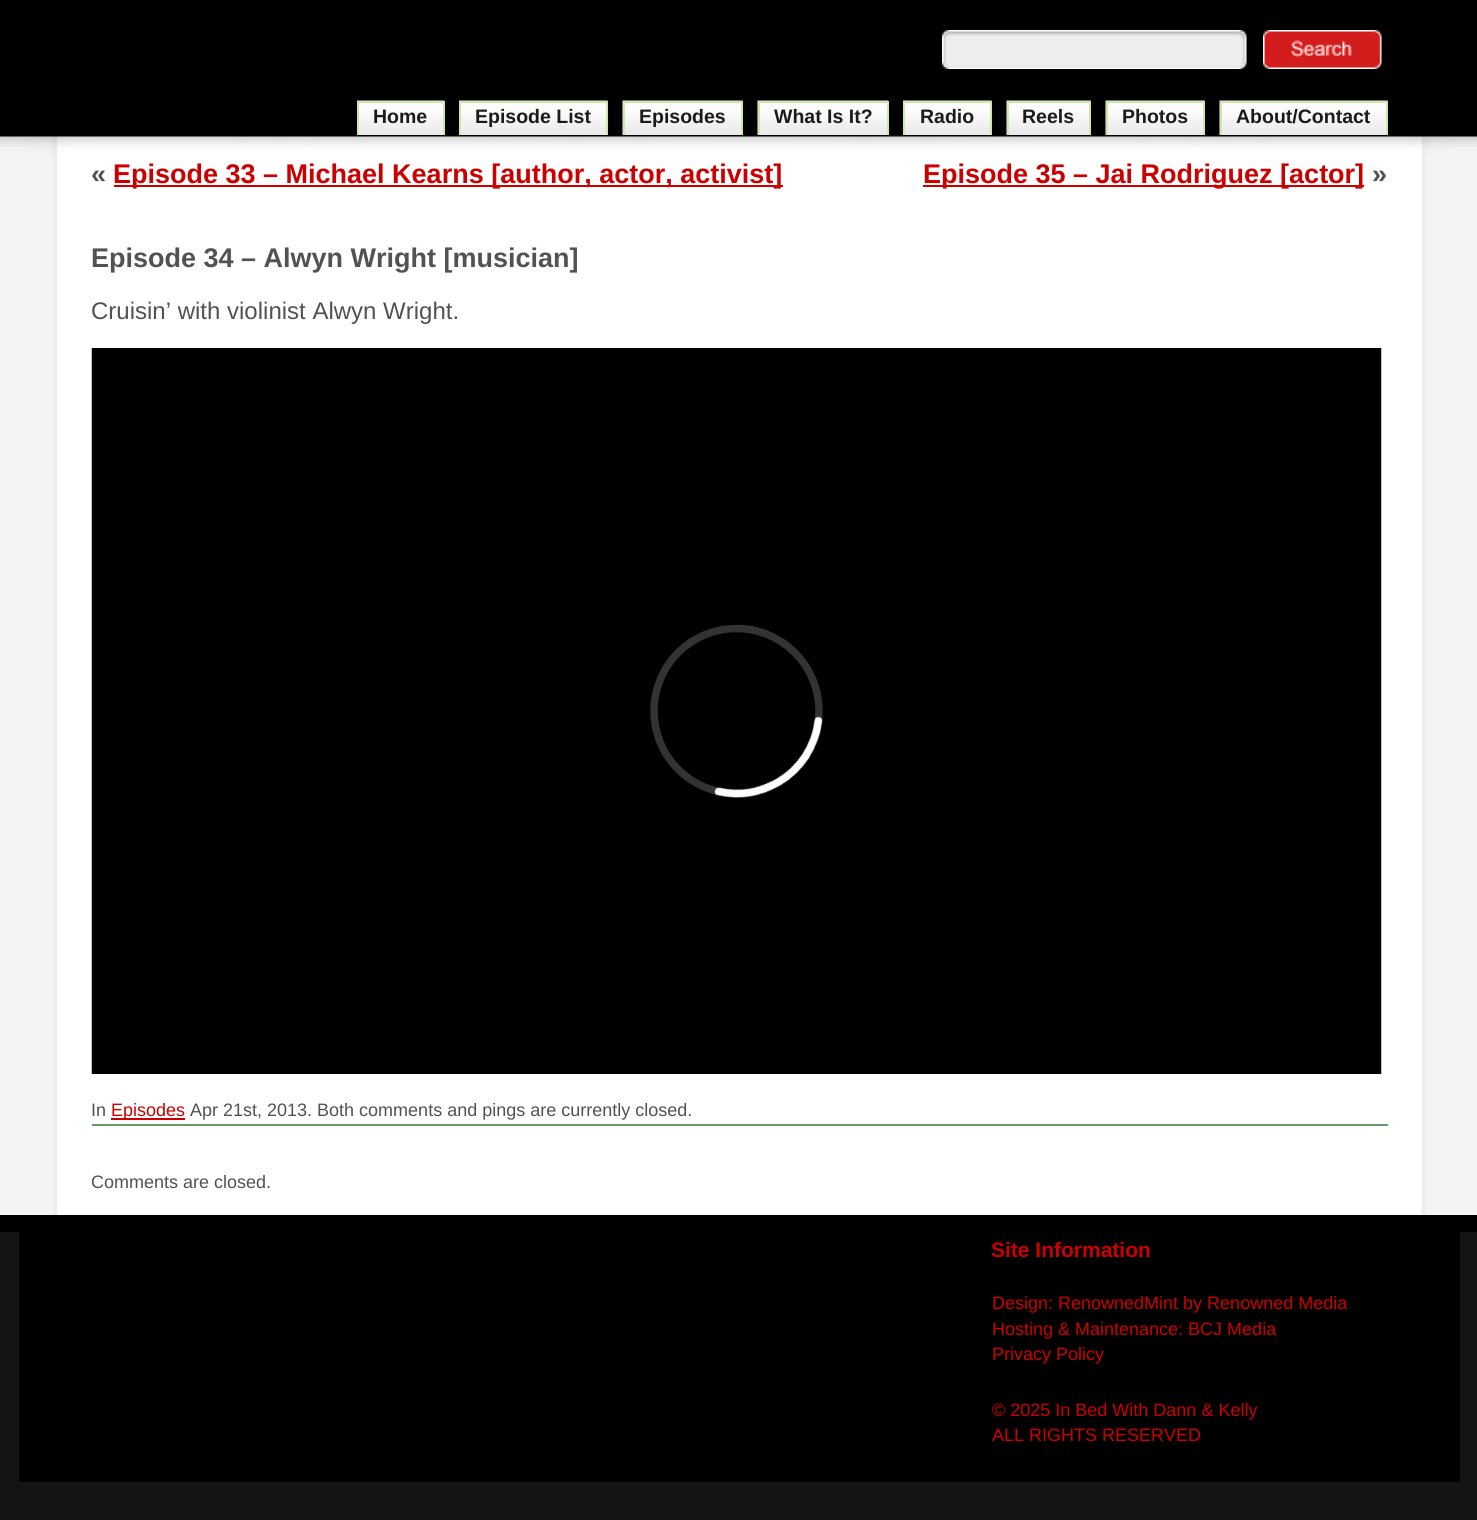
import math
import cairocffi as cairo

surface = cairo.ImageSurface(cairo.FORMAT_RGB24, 1477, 1520)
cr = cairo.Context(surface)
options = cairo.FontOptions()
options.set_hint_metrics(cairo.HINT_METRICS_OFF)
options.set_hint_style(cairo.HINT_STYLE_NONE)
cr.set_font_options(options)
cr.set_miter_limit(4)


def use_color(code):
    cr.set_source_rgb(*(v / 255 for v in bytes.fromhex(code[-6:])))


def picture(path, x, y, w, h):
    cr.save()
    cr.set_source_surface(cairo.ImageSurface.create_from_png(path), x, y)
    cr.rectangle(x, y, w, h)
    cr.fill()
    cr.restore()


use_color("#141414")
cr.paint()
use_color("#f4f4f4")
cr.rectangle(0, 147, 1477, 1068)
cr.fill()
picture("img1.png", 0, 0, 1477, 147)
picture("img2.png", 24, 136, 1431, 20)
picture("img3.png", 942, 30, 305, 39)
picture("img4.png", 1263, 30, 119, 39)
picture("img5.png", 357, 100, 87, 35)
use_color("#cde9a7")
cr.rectangle(357, 101, 87, 2)
cr.fill()
cr.rectangle(443, 101, 2, 34)
cr.fill()
cr.rectangle(357, 101, 2, 34)
cr.fill()
cr.select_font_face("Liberation Sans", cairo.FONT_SLANT_NORMAL, cairo.FONT_WEIGHT_BOLD)
cr.set_font_size(19.5)
use_color("#1b1b1b")
cr.move_to(373, 123)
cr.show_text("Home")
picture("img6.png", 459, 100, 149, 35)
use_color("#cde9a7")
cr.rectangle(459, 101, 149, 2)
cr.fill()
cr.rectangle(606, 101, 2, 34)
cr.fill()
cr.rectangle(459, 101, 2, 34)
cr.fill()
use_color("#1b1b1b")
cr.move_to(475, 123)
cr.show_text("Episode List")
picture("img7.png", 622, 100, 121, 35)
use_color("#cde9a7")
cr.rectangle(623, 101, 120, 2)
cr.fill()
cr.rectangle(741, 101, 2, 34)
cr.fill()
cr.rectangle(623, 101, 2, 34)
cr.fill()
use_color("#1b1b1b")
cr.move_to(639, 123)
cr.show_text("Episodes")
picture("img8.png", 757, 100, 131, 35)
use_color("#cde9a7")
cr.rectangle(758, 101, 130, 2)
cr.fill()
cr.rectangle(887, 101, 2, 34)
cr.fill()
cr.rectangle(758, 101, 2, 34)
cr.fill()
use_color("#1b1b1b")
cr.move_to(774, 123)
cr.show_text("What Is It?")
picture("img9.png", 903, 100, 89, 35)
use_color("#cde9a7")
cr.rectangle(903, 101, 89, 2)
cr.fill()
cr.rectangle(990, 101, 2, 34)
cr.fill()
cr.rectangle(903, 101, 2, 34)
cr.fill()
use_color("#1b1b1b")
cr.move_to(920, 123)
cr.show_text("Radio")
picture("img10.png", 1006, 100, 85, 35)
use_color("#cde9a7")
cr.rectangle(1007, 101, 84, 2)
cr.fill()
cr.rectangle(1089, 101, 2, 34)
cr.fill()
cr.rectangle(1007, 101, 2, 34)
cr.fill()
use_color("#1b1b1b")
cr.move_to(1022, 123)
cr.show_text("Reels")
picture("img11.png", 1105, 100, 100, 35)
use_color("#cde9a7")
cr.rectangle(1106, 101, 99, 2)
cr.fill()
cr.rectangle(1203, 101, 2, 34)
cr.fill()
cr.rectangle(1106, 101, 2, 34)
cr.fill()
use_color("#1b1b1b")
cr.move_to(1122, 123)
cr.show_text("Photos")
picture("img12.png", 1219, 100, 169, 35)
use_color("#cde9a7")
cr.rectangle(1220, 101, 168, 2)
cr.fill()
cr.rectangle(1386, 101, 2, 34)
cr.fill()
cr.rectangle(1220, 101, 2, 34)
cr.fill()
use_color("#1b1b1b")
cr.move_to(1236, 123)
cr.show_text("About/Contact")
picture("img13.png", 53, 156, 1373, 1059)
cr.set_font_size(27)
use_color("#525252")
cr.move_to(91, 183)
cr.show_text("«")
use_color("#cc0000")
cr.rectangle(114, 185, 669, 2)
cr.fill()
cr.move_to(113, 183)
cr.show_text("Episode 33 – Michael Kearns [author, actor, activist]")
cr.rectangle(923, 185, 441, 2)
cr.fill()
cr.move_to(923, 183)
cr.show_text("Episode 35 – Jai Rodriguez [actor]")
use_color("#525252")
cr.move_to(1372, 183)
cr.show_text("»")
cr.move_to(91, 267)
cr.show_text("Episode 34 – Alwyn Wright [musician]")
cr.select_font_face("Liberation Sans")
cr.set_font_size(24)
cr.move_to(91, 319)
cr.show_text("Cruisin’ with violinist Alwyn Wright.")
picture("img14.png", 91, 348, 1291, 726)
use_color("#689a64")
cr.rectangle(92, 1124, 1296, 2)
cr.fill()
cr.set_font_size(18)
use_color("#525252")
cr.move_to(91, 1116)
cr.show_text("In")
use_color("#cc0000")
cr.rectangle(111, 1118, 74, 2)
cr.fill()
cr.move_to(111, 1116)
cr.show_text("Episodes")
use_color("#525252")
cr.move_to(190, 1116)
cr.show_text("Apr 21st, 2013. Both comments and pings are currently closed.")
cr.move_to(91, 1188)
cr.show_text("Comments are closed.")
use_color("#000000")
cr.rectangle(0, 1215, 1477, 17)
cr.fill()
cr.rectangle(19, 1232, 1441, 250)
cr.fill()
cr.select_font_face("Liberation Sans", cairo.FONT_SLANT_NORMAL, cairo.FONT_WEIGHT_BOLD)
cr.set_font_size(21)
use_color("#cc0000")
cr.move_to(991, 1257)
cr.show_text("Site Information")
cr.select_font_face("Liberation Sans")
cr.set_font_size(18)
cr.move_to(992, 1309)
cr.show_text("Design: RenownedMint by Renowned Media")
cr.move_to(992, 1335)
cr.show_text("Hosting & Maintenance: BCJ Media")
cr.move_to(992, 1360)
cr.show_text("Privacy Policy")
cr.move_to(992, 1416)
cr.show_text("© 2025 In Bed With Dann & Kelly")
cr.move_to(992, 1441)
cr.show_text("ALL RIGHTS RESERVED")
surface.write_to_png("result.png")
